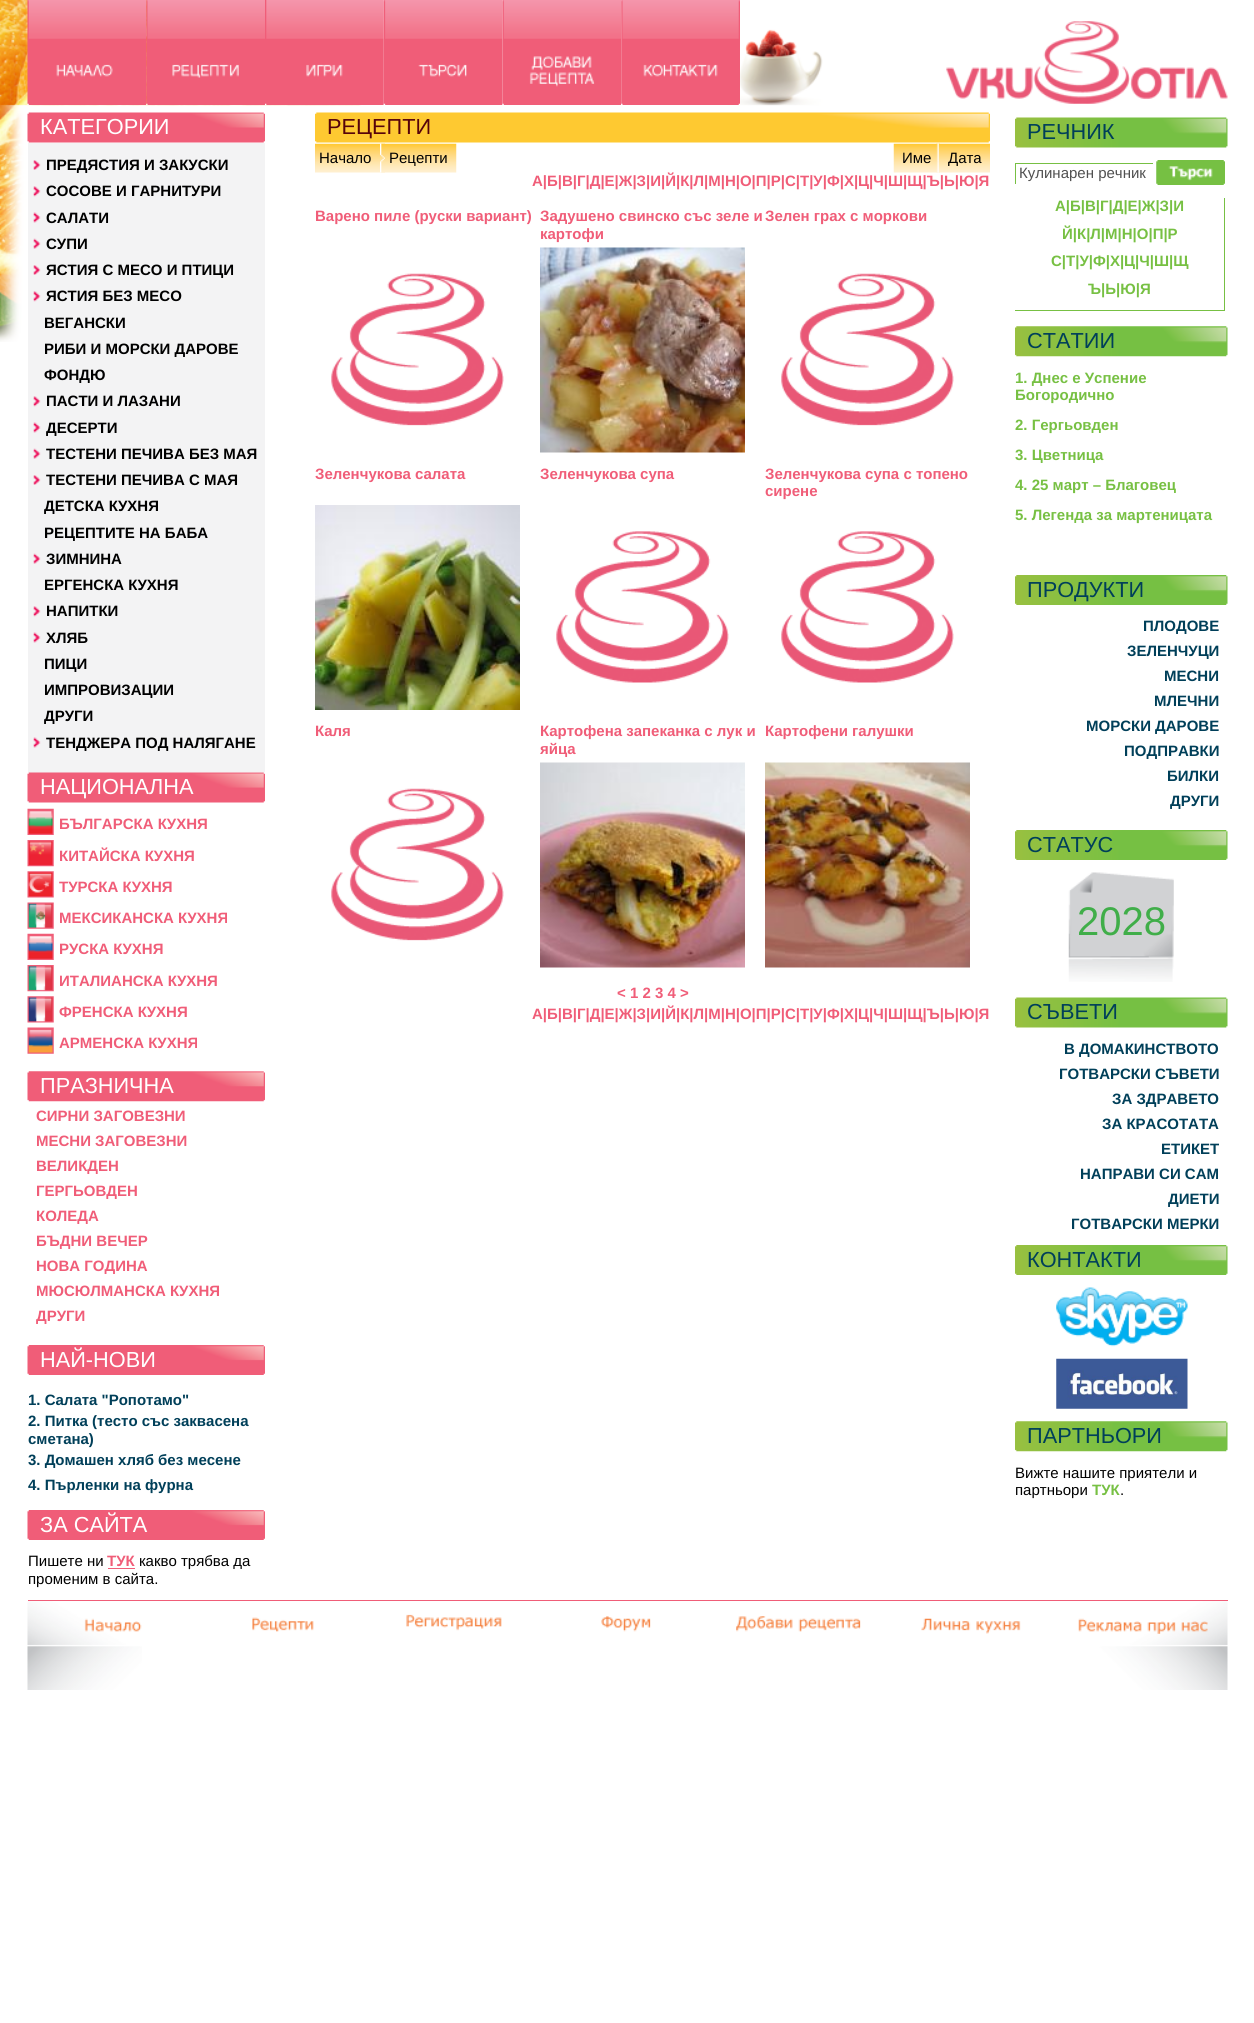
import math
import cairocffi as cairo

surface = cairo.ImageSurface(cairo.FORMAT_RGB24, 1254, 2023)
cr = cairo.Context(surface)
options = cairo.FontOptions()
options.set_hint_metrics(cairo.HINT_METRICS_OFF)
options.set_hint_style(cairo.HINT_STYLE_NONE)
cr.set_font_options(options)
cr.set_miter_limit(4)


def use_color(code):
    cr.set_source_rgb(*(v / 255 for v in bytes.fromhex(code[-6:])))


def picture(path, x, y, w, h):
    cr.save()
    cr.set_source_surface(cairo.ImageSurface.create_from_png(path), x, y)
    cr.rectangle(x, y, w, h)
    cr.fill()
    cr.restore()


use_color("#ffffff")
cr.paint()
picture("img1.png", 0, 0, 823, 342)
picture("img2.png", 27, 0, 120, 105)
picture("img3.png", 146, 0, 119, 105)
picture("img4.png", 265, 0, 119, 105)
picture("img5.png", 383, 0, 120, 105)
picture("img6.png", 502, 0, 120, 105)
picture("img7.png", 621, 0, 119, 105)
picture("img8.png", 946, 21, 282, 83)
picture("img9.png", 27, 112, 238, 31)
cr.select_font_face("Liberation Sans")
cr.set_font_size(21.75)
use_color("#ffffff")
cr.move_to(40, 134)
cr.show_text("КАТЕГОРИИ")
use_color("#f3f3f4")
cr.rectangle(28, 143, 237, 630)
cr.fill()
picture("img10.png", 33, 160, 8, 10)
cr.select_font_face("Liberation Sans", cairo.FONT_SLANT_NORMAL, cairo.FONT_WEIGHT_BOLD)
cr.set_font_size(15)
use_color("#000000")
cr.move_to(46, 170)
cr.show_text("ПРЕДЯСТИЯ И ЗАКУСКИ")
picture("img11.png", 33, 186, 8, 11)
cr.move_to(46, 196)
cr.show_text("СОСОВЕ И ГАРНИТУРИ")
picture("img12.png", 33, 212, 8, 11)
cr.move_to(46, 223)
cr.show_text("САЛАТИ")
picture("img13.png", 33, 238, 8, 11)
cr.move_to(46, 249)
cr.show_text("СУПИ")
picture("img10.png", 33, 265, 8, 10)
cr.move_to(46, 275)
cr.show_text("ЯСТИЯ С МЕСО И ПТИЦИ")
picture("img14.png", 33, 291, 8, 11)
cr.move_to(46, 301)
cr.show_text("ЯСТИЯ БЕЗ МЕСО")
cr.move_to(44, 328)
cr.show_text("ВЕГАНСКИ")
cr.move_to(44, 354)
cr.show_text("РИБИ И МОРСКИ ДАРОВЕ")
cr.move_to(44, 380)
cr.show_text("ФОНДЮ")
picture("img11.png", 33, 396, 8, 11)
cr.move_to(46, 406)
cr.show_text("ПАСТИ И ЛАЗАНИ")
picture("img12.png", 33, 422, 8, 11)
cr.move_to(46, 433)
cr.show_text("ДЕСЕРТИ")
picture("img13.png", 33, 448, 8, 11)
cr.move_to(46, 459)
cr.show_text("ТЕСТЕНИ ПЕЧИВА БЕЗ МАЯ")
picture("img10.png", 33, 475, 8, 10)
cr.move_to(46, 485)
cr.show_text("ТЕСТЕНИ ПЕЧИВА С МАЯ")
cr.move_to(44, 511)
cr.show_text("ДЕТСКА КУХНЯ")
cr.move_to(44, 538)
cr.show_text("РЕЦЕПТИТЕ НА БАБА")
picture("img13.png", 33, 553, 8, 11)
cr.move_to(46, 564)
cr.show_text("ЗИМНИНА")
cr.move_to(44, 590)
cr.show_text("ЕРГЕНСКА КУХНЯ")
picture("img11.png", 33, 606, 8, 11)
cr.move_to(46, 616)
cr.show_text("НАПИТКИ")
picture("img12.png", 33, 632, 8, 11)
cr.move_to(46, 643)
cr.show_text("ХЛЯБ")
cr.move_to(44, 669)
cr.show_text("ПИЦИ")
cr.move_to(44, 695)
cr.show_text("ИМПРОВИЗАЦИИ")
cr.move_to(44, 721)
cr.show_text("ДРУГИ")
picture("img12.png", 33, 737, 8, 11)
cr.move_to(46, 748)
cr.show_text("ТЕНДЖЕРА ПОД НАЛЯГАНЕ")
picture("img15.png", 27, 772, 238, 31)
cr.select_font_face("Liberation Sans")
cr.set_font_size(21.75)
use_color("#ffffff")
cr.move_to(40, 794)
cr.show_text("НАЦИОНАЛНА")
picture("img16.png", 27, 808, 27, 27)
cr.select_font_face("Liberation Sans", cairo.FONT_SLANT_NORMAL, cairo.FONT_WEIGHT_BOLD)
cr.set_font_size(15)
use_color("#f05d78")
cr.move_to(59, 829)
cr.show_text("БЪЛГАРСКА КУХНЯ")
picture("img17.png", 27, 840, 27, 27)
cr.move_to(59, 861)
cr.show_text("КИТАЙСКА КУХНЯ")
picture("img18.png", 27, 871, 27, 27)
cr.move_to(59, 892)
cr.show_text("ТУРСКА КУХНЯ")
picture("img19.png", 27, 902, 27, 27)
cr.move_to(59, 923)
cr.show_text("МЕКСИКАНСКА КУХНЯ")
picture("img20.png", 27, 933, 27, 27)
cr.move_to(59, 954)
cr.show_text("РУСКА КУХНЯ")
picture("img21.png", 27, 965, 27, 27)
cr.move_to(59, 986)
cr.show_text("ИТАЛИАНСКА КУХНЯ")
picture("img22.png", 27, 996, 27, 27)
cr.move_to(59, 1017)
cr.show_text("ФРЕНСКА КУХНЯ")
picture("img23.png", 27, 1027, 27, 27)
cr.move_to(59, 1048)
cr.show_text("АРМЕНСКА КУХНЯ")
picture("img24.png", 27, 1071, 238, 31)
cr.select_font_face("Liberation Sans")
cr.set_font_size(21.75)
use_color("#ffffff")
cr.move_to(40, 1093)
cr.show_text("ПРАЗНИЧНА")
cr.select_font_face("Liberation Sans", cairo.FONT_SLANT_NORMAL, cairo.FONT_WEIGHT_BOLD)
cr.set_font_size(15)
use_color("#f05d78")
cr.move_to(36, 1121)
cr.show_text("СИРНИ ЗАГОВЕЗНИ")
cr.move_to(36, 1146)
cr.show_text("МЕСНИ ЗАГОВЕЗНИ")
cr.move_to(36, 1171)
cr.show_text("ВЕЛИКДЕН")
cr.move_to(36, 1196)
cr.show_text("ГЕРГЬОВДЕН")
cr.move_to(36, 1221)
cr.show_text("КОЛЕДА")
cr.move_to(36, 1246)
cr.show_text("БЪДНИ ВЕЧЕР")
cr.move_to(36, 1271)
cr.show_text("НОВА ГОДИНА")
cr.move_to(36, 1296)
cr.show_text("МЮСЮЛМАНСКА КУХНЯ")
cr.move_to(36, 1321)
cr.show_text("ДРУГИ")
picture("img25.png", 27, 1345, 238, 30)
cr.select_font_face("Liberation Sans")
cr.set_font_size(21.75)
use_color("#ffffff")
cr.move_to(40, 1367)
cr.show_text("НАЙ-НОВИ")
cr.select_font_face("Liberation Sans", cairo.FONT_SLANT_NORMAL, cairo.FONT_WEIGHT_BOLD)
cr.set_font_size(15)
use_color("#003f59")
cr.move_to(28, 1405)
cr.show_text("1. Салата \"Ропотамо\"")
cr.move_to(28, 1426)
cr.show_text("2. Питка (тесто със заквасена")
cr.move_to(28, 1444)
cr.show_text("сметана)")
cr.move_to(28, 1465)
cr.show_text("3. Домашен хляб без месене")
cr.move_to(28, 1490)
cr.show_text("4. Пърленки на фурна")
picture("img25.png", 27, 1510, 238, 30)
cr.select_font_face("Liberation Sans")
cr.set_font_size(21.75)
use_color("#ffffff")
cr.move_to(40, 1532)
cr.show_text("ЗА САЙТА")
cr.set_font_size(15)
use_color("#000000")
cr.move_to(28, 1566)
cr.show_text("Пишете ни")
cr.select_font_face("Liberation Sans", cairo.FONT_SLANT_NORMAL, cairo.FONT_WEIGHT_BOLD)
use_color("#f05d78")
cr.move_to(107, 1566)
cr.show_text("ТУК")
cr.rectangle(108, 1568, 27, 1)
cr.fill()
cr.select_font_face("Liberation Sans")
use_color("#000000")
cr.move_to(139, 1566)
cr.show_text("какво трябва да")
cr.move_to(28, 1584)
cr.show_text("променим в сайта.")
picture("img26.png", 315, 112, 675, 31)
cr.set_font_size(21.75)
use_color("#56030a")
cr.move_to(327, 134)
cr.show_text("РЕЦЕПТИ")
picture("img27.png", 315, 143, 65, 30)
cr.set_font_size(15)
use_color("#000000")
cr.move_to(319, 163)
cr.show_text("Начало")
picture("img28.png", 380, 143, 5, 30)
picture("img29.png", 380, 143, 5, 30)
picture("img30.png", 385, 143, 72, 30)
cr.move_to(389, 163)
cr.show_text("Рецепти")
picture("img31.png", 893, 143, 44, 30)
cr.move_to(902, 163)
cr.show_text("Име")
use_color("#ffffff")
cr.rectangle(936, 144, 1, 29)
cr.fill()
picture("img32.png", 936, 143, 4, 30)
picture("img33.png", 936, 143, 4, 30)
picture("img34.png", 940, 143, 50, 30)
use_color("#000000")
cr.move_to(948, 163)
cr.show_text("Дата")
cr.select_font_face("Liberation Sans", cairo.FONT_SLANT_NORMAL, cairo.FONT_WEIGHT_BOLD)
use_color("#f05d78")
cr.move_to(532, 186)
cr.show_text("А|Б|В|Г|Д|Е|Ж|З|И|Й|К|Л|М|Н|О|П|Р|С|Т|У|Ф|Х|Ц|Ч|Ш|Щ|Ъ|Ь|Ю|Я")
cr.move_to(315, 221)
cr.show_text("Варено пиле (руски вариант)")
cr.move_to(540, 221)
cr.show_text("Задушено свинско със зеле и")
cr.move_to(540, 239)
cr.show_text("картофи")
cr.move_to(765, 221)
cr.show_text("Зелен грах с моркови")
picture("img35.png", 331, 273, 173, 153)
picture("img36.png", 540, 247, 205, 206)
picture("img35.png", 781, 273, 173, 153)
cr.move_to(315, 479)
cr.show_text("Зеленчукова салата")
cr.move_to(540, 479)
cr.show_text("Зеленчукова супа")
cr.move_to(765, 479)
cr.show_text("Зеленчукова супа с топено")
cr.move_to(765, 496)
cr.show_text("сирене")
picture("img37.png", 315, 505, 205, 205)
picture("img38.png", 556, 531, 173, 152)
picture("img39.png", 781, 531, 173, 152)
cr.move_to(315, 736)
cr.show_text("Каля")
cr.move_to(540, 736)
cr.show_text("Картофена запеканка с лук и")
cr.move_to(540, 754)
cr.show_text("яйца")
cr.move_to(765, 736)
cr.show_text("Картофени галушки")
picture("img35.png", 331, 788, 173, 153)
picture("img40.png", 540, 762, 205, 206)
picture("img41.png", 765, 762, 205, 206)
cr.move_to(617, 998)
cr.show_text("< 1 2 3 4 >")
cr.move_to(532, 1019)
cr.show_text("А|Б|В|Г|Д|Е|Ж|З|И|Й|К|Л|М|Н|О|П|Р|С|Т|У|Ф|Х|Ц|Ч|Ш|Щ|Ъ|Ь|Ю|Я")
picture("img42.png", 1015, 117, 213, 31)
cr.select_font_face("Liberation Sans")
cr.set_font_size(21.75)
use_color("#003f59")
cr.move_to(1027, 139)
cr.show_text("РЕЧНИК")
use_color("#77c043")
cr.rectangle(1015, 163, 138, 1)
cr.fill()
cr.rectangle(1015, 163, 1, 21)
cr.fill()
cr.set_font_size(15)
use_color("#505050")
cr.move_to(1019, 178)
cr.show_text("Кулинарен речник")
picture("img43.png", 1156, 160, 69, 25)
use_color("#77c043")
cr.rectangle(1224, 198, 1, 113)
cr.fill()
cr.rectangle(1015, 310, 210, 1)
cr.fill()
cr.select_font_face("Liberation Sans", cairo.FONT_SLANT_NORMAL, cairo.FONT_WEIGHT_BOLD)
cr.move_to(1055, 211)
cr.show_text("А|Б|В|Г|Д|Е|Ж|З|И")
cr.move_to(1062, 239)
cr.show_text("Й|К|Л|М|Н|О|П|Р")
cr.move_to(1051, 266)
cr.show_text("С|Т|У|Ф|Х|Ц|Ч|Ш|Щ")
cr.move_to(1088, 294)
cr.show_text("Ъ|Ь|Ю|Я")
picture("img44.png", 1015, 326, 213, 31)
cr.select_font_face("Liberation Sans")
cr.set_font_size(21.75)
use_color("#003f59")
cr.move_to(1027, 348)
cr.show_text("СТАТИИ")
cr.select_font_face("Liberation Sans", cairo.FONT_SLANT_NORMAL, cairo.FONT_WEIGHT_BOLD)
cr.set_font_size(15)
use_color("#77c043")
cr.move_to(1015, 383)
cr.show_text("1. Днес е Успение")
cr.move_to(1015, 400)
cr.show_text("Богородично")
cr.move_to(1015, 430)
cr.show_text("2. Гергьовден")
cr.move_to(1015, 460)
cr.show_text("3. Цветница")
cr.move_to(1015, 490)
cr.show_text("4. 25 март – Благовец")
cr.move_to(1015, 520)
cr.show_text("5. Легенда за мартеницата")
picture("img45.png", 1015, 575, 213, 30)
cr.select_font_face("Liberation Sans")
cr.set_font_size(21.75)
use_color("#003f59")
cr.move_to(1027, 597)
cr.show_text("ПРОДУКТИ")
cr.select_font_face("Liberation Sans", cairo.FONT_SLANT_NORMAL, cairo.FONT_WEIGHT_BOLD)
cr.set_font_size(15)
cr.move_to(1143, 631)
cr.show_text("ПЛОДОВЕ")
cr.move_to(1127, 656)
cr.show_text("ЗЕЛЕНЧУЦИ")
cr.move_to(1164, 681)
cr.show_text("МЕСНИ")
cr.move_to(1154, 706)
cr.show_text("МЛЕЧНИ")
cr.move_to(1086, 731)
cr.show_text("МОРСКИ ДАРОВЕ")
cr.move_to(1124, 756)
cr.show_text("ПОДПРАВКИ")
cr.move_to(1167, 781)
cr.show_text("БИЛКИ")
cr.move_to(1170, 806)
cr.show_text("ДРУГИ")
picture("img45.png", 1015, 830, 213, 30)
cr.select_font_face("Liberation Sans")
cr.set_font_size(21.75)
cr.move_to(1027, 852)
cr.show_text("СТАТУС")
picture("img46.png", 1068, 872, 106, 110)
cr.set_font_size(40)
use_color("#40ae49")
cr.move_to(1077, 935)
cr.show_text("2028")
picture("img42.png", 1015, 997, 213, 31)
cr.set_font_size(21.75)
use_color("#003f59")
cr.move_to(1027, 1019)
cr.show_text("СЪВЕТИ")
cr.select_font_face("Liberation Sans", cairo.FONT_SLANT_NORMAL, cairo.FONT_WEIGHT_BOLD)
cr.set_font_size(15)
cr.move_to(1064, 1054)
cr.show_text("В ДОМАКИНСТВОТО")
cr.move_to(1059, 1079)
cr.show_text("ГОТВАРСКИ СЪВЕТИ")
cr.move_to(1112, 1104)
cr.show_text("ЗА ЗДРАВЕТО")
cr.move_to(1102, 1129)
cr.show_text("ЗА КРАСОТАТА")
cr.move_to(1161, 1154)
cr.show_text("ЕТИКЕТ")
cr.move_to(1080, 1179)
cr.show_text("НАПРАВИ СИ САМ")
cr.move_to(1168, 1204)
cr.show_text("ДИЕТИ")
cr.move_to(1071, 1229)
cr.show_text("ГОТВАРСКИ МЕРКИ")
picture("img45.png", 1015, 1245, 213, 30)
cr.select_font_face("Liberation Sans")
cr.set_font_size(21.75)
cr.move_to(1027, 1267)
cr.show_text("КОНТАКТИ")
picture("img47.png", 1056, 1287, 132, 60)
picture("img48.png", 1056, 1358, 132, 51)
picture("img44.png", 1015, 1421, 213, 31)
cr.move_to(1027, 1443)
cr.show_text("ПАРТНЬОРИ")
cr.set_font_size(15)
use_color("#000000")
cr.move_to(1015, 1478)
cr.show_text("Вижте нашите приятели и")
cr.move_to(1015, 1495)
cr.show_text("партньори")
cr.select_font_face("Liberation Sans", cairo.FONT_SLANT_NORMAL, cairo.FONT_WEIGHT_BOLD)
use_color("#77c043")
cr.move_to(1092, 1495)
cr.show_text("ТУК")
cr.select_font_face("Liberation Sans")
use_color("#000000")
cr.move_to(1120, 1495)
cr.show_text(".")
use_color("#f05d78")
cr.rectangle(28, 1600, 1200, 1)
cr.fill()
picture("img49.png", 27, 1601, 115, 89)
picture("img50.png", 252, 1617, 62, 15)
picture("img51.png", 406, 1614, 96, 17)
picture("img52.png", 601, 1616, 50, 16)
picture("img53.png", 736, 1616, 125, 16)
picture("img54.png", 921, 1618, 100, 16)
picture("img55.png", 1078, 1601, 150, 89)
surface.write_to_png("result.png")
